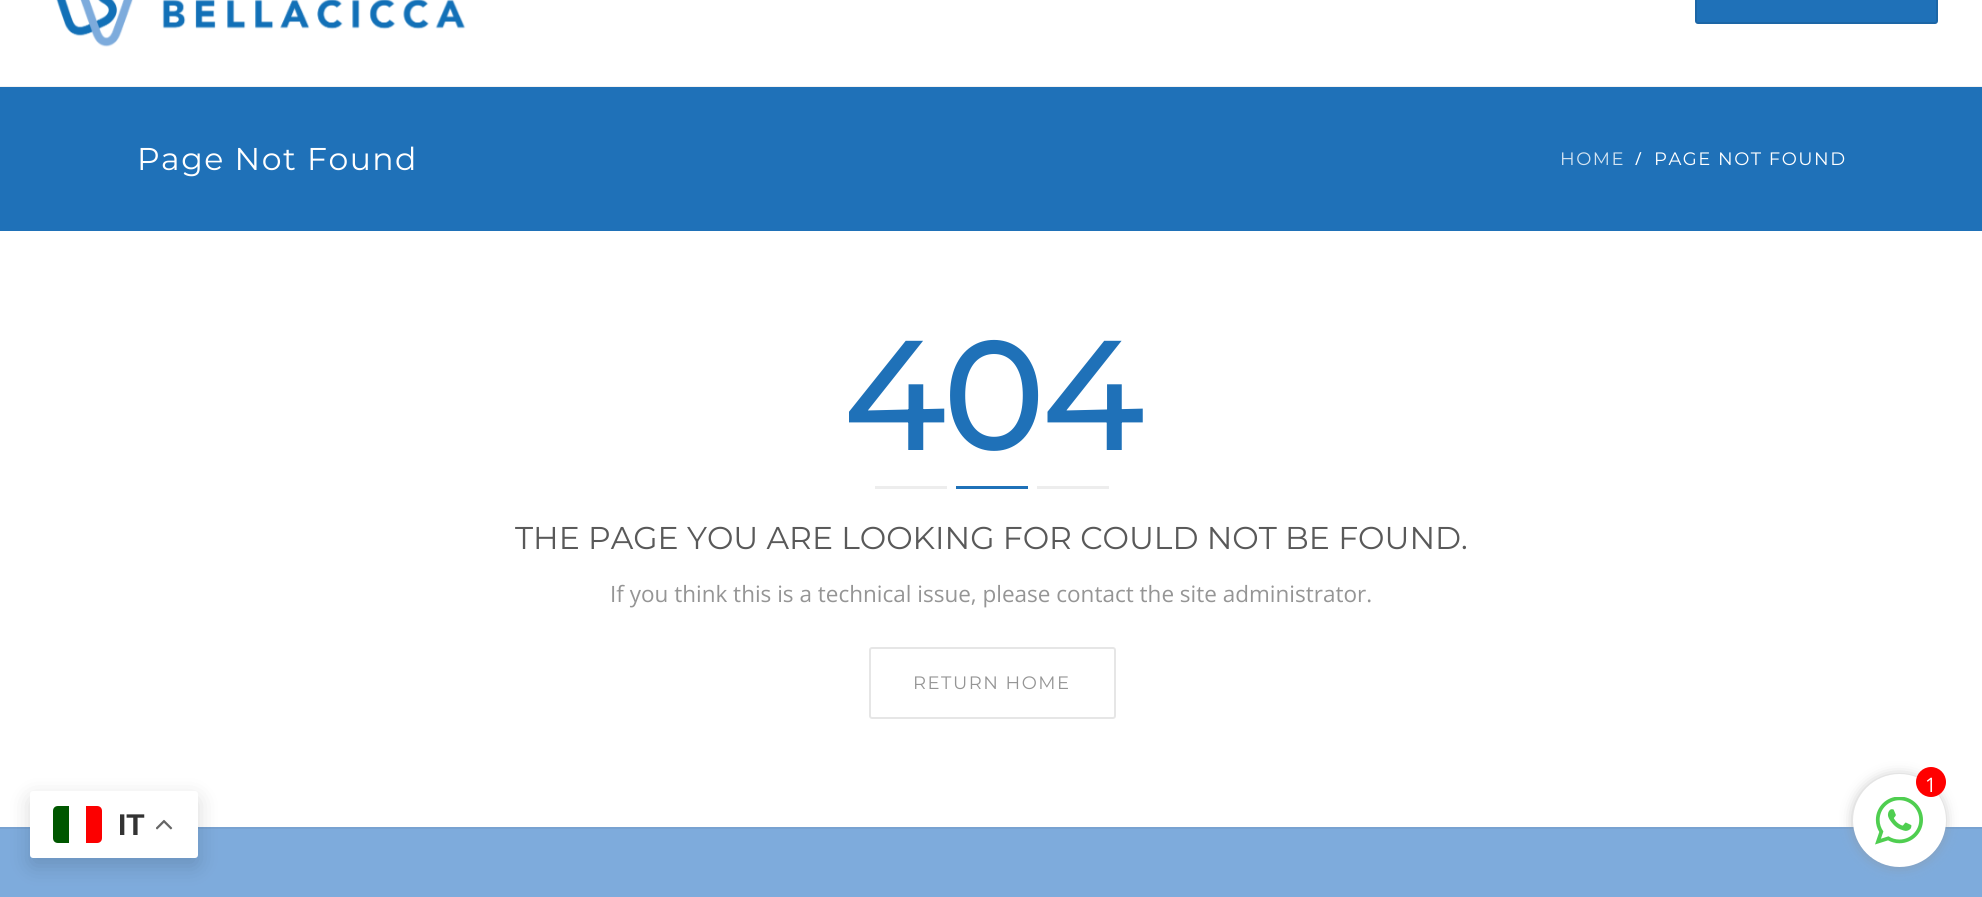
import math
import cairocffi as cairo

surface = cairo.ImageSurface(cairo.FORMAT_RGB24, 1982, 897)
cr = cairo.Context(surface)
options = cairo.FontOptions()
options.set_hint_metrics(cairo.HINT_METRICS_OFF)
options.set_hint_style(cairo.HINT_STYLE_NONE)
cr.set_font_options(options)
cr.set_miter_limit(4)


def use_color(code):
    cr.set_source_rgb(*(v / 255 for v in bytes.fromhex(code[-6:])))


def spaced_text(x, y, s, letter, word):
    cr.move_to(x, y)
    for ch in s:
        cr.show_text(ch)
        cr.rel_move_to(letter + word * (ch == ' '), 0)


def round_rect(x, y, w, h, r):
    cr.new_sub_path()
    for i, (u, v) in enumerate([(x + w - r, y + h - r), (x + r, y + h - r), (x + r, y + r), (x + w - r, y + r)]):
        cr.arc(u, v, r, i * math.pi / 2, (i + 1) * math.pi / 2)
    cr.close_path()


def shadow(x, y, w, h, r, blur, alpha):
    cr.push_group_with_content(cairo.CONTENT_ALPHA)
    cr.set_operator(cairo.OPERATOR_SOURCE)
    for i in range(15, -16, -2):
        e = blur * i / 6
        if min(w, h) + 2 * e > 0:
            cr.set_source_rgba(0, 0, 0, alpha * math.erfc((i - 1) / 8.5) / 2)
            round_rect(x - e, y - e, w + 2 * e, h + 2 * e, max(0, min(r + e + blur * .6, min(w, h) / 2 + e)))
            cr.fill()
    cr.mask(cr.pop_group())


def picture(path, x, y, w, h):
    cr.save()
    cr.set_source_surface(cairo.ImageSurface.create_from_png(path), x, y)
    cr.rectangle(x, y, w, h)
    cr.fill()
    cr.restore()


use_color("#ffffff")
cr.paint()
use_color("#f2f2f2")
cr.rectangle(0, 86, 1982, 1)
cr.fill()
picture("img1.png", 56, 0, 410, 47)
use_color("#1f71b8")
round_rect(1695, -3, 243, 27, 3)
cr.fill()
round_rect(1696, -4, 241, 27, 2)
cr.set_source_rgba(0, 0, 0, 0.1)
cr.stroke()
use_color("#1f71b8")
cr.rectangle(0, 87, 1982, 144)
cr.fill()
cr.select_font_face("Montserrat Thin")
cr.set_font_size(31.5)
use_color("#ffffff")
spaced_text(137, 170, "Page Not Found", 1.5, 0)
cr.set_font_size(18)
use_color("#d2e3f1")
spaced_text(1560, 165, "HOME", 1.5, 0)
cr.select_font_face("Open Sans")
use_color("#ffffff")
spaced_text(1635, 165, "/", 1.5, 0)
cr.select_font_face("Montserrat Thin")
spaced_text(1654, 165, "PAGE NOT FOUND", 1.5, 0)
cr.select_font_face("Montserrat", cairo.FONT_SLANT_NORMAL, cairo.FONT_WEIGHT_BOLD)
cr.set_font_size(150)
use_color("#1f71b8")
cr.move_to(843, 450)
cr.show_text("404")
use_color("#ededed")
cr.rectangle(875, 486, 72, 3)
cr.fill()
cr.rectangle(1037, 486, 72, 3)
cr.fill()
use_color("#1f71b8")
cr.rectangle(956, 486, 72, 3)
cr.fill()
cr.select_font_face("Montserrat Thin")
cr.set_font_size(31.5)
use_color("#595959")
cr.move_to(515, 549)
cr.show_text("THE PAGE YOU ARE LOOKING FOR COULD NOT BE FOUND.")
cr.select_font_face("Open Sans")
cr.set_font_size(22.5)
use_color("#959595")
cr.move_to(610, 602)
cr.show_text("If you think this is a technical issue, please contact the site administrator.")
round_rect(870, 648, 245, 70, 2)
use_color("#e6e6e6")
cr.stroke()
cr.select_font_face("Montserrat Thin")
cr.set_font_size(18)
use_color("#959595")
spaced_text(913, 689, "RETURN HOME", 1.5, 0)
use_color("#7eabdc")
cr.rectangle(0, 829, 1982, 68)
cr.fill()
use_color("#78a2d1")
cr.rectangle(0, 827, 1982, 2)
cr.fill()
use_color("#959595")
shadow(1857, 779, 84, 84, 42, 7.5, 1)
use_color("#ffffff")
cr.arc(1899.5, 820.5, 46.5, 0, 2 * math.pi)
cr.fill()
use_color("#ff0000")
cr.arc(1931, 782, 15, 0, 2 * math.pi)
cr.fill()
cr.select_font_face("Open Sans")
cr.set_font_size(20)
use_color("#ffffff")
cr.move_to(1925, 792)
cr.show_text("1")
picture("img2.png", 1875, 797, 48, 48)
use_color("#000000")
shadow(30, 798, 168, 68, 3, 11, 0.15)
use_color("#ffffff")
round_rect(30, 791, 168, 67, 3)
cr.fill()
use_color("#005700")
cr.new_path()
cr.move_to(58, 806)
cr.line_to(69, 806)
cr.line_to(69, 843)
cr.line_to(58, 843)
cr.curve_to(55, 843, 53, 841, 53, 838)
cr.line_to(53, 811)
cr.curve_to(53, 808, 55, 806, 58, 806)
cr.close_path()
cr.fill()
use_color("#fc0000")
cr.new_path()
cr.move_to(86, 806)
cr.line_to(97, 806)
cr.curve_to(100, 806, 102, 808, 102, 811)
cr.line_to(102, 838)
cr.curve_to(102, 841, 100, 843, 97, 843)
cr.line_to(86, 843)
cr.close_path()
cr.fill()
cr.select_font_face("Liberation Sans", cairo.FONT_SLANT_NORMAL, cairo.FONT_WEIGHT_BOLD)
cr.set_font_size(30)
use_color("#333333")
cr.move_to(118, 835)
cr.show_text("IT")
picture("img3.png", 156, 819, 17, 11)
surface.write_to_png("result.png")
